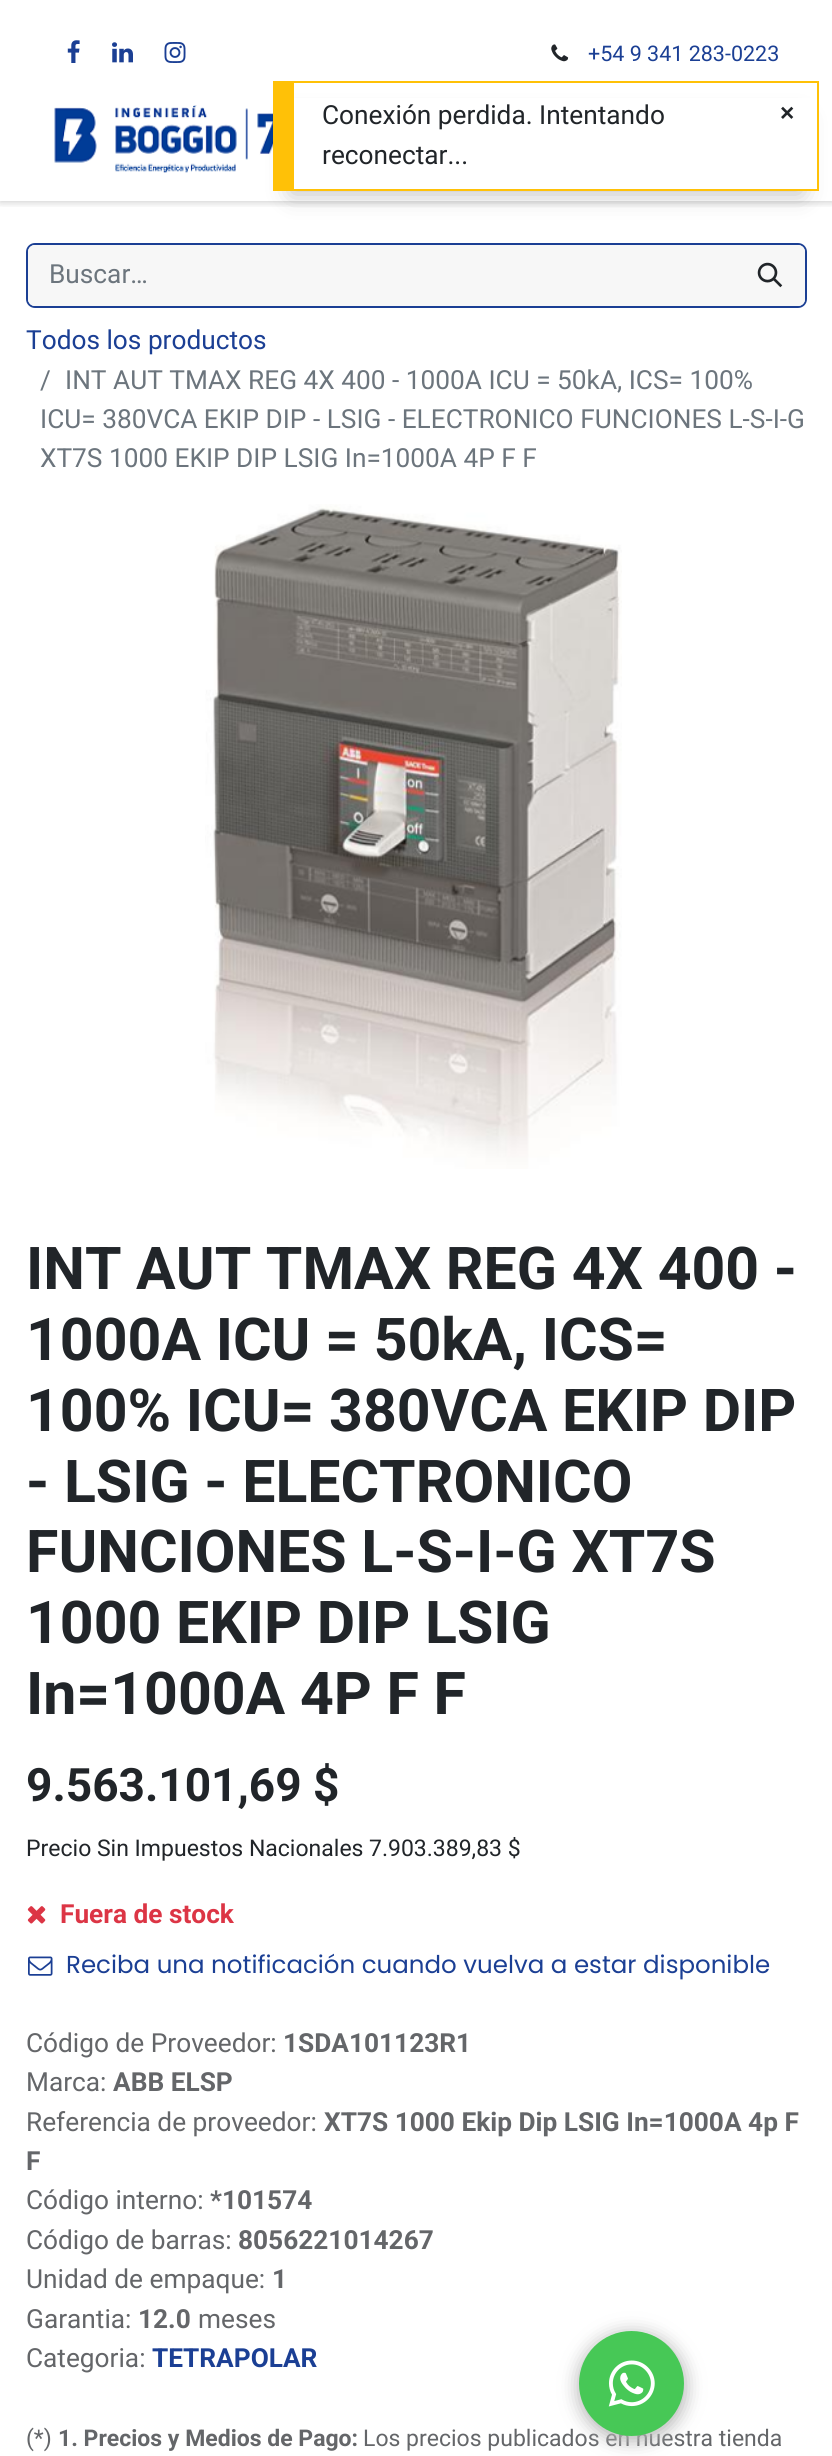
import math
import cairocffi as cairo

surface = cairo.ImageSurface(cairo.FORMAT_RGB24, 832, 2456)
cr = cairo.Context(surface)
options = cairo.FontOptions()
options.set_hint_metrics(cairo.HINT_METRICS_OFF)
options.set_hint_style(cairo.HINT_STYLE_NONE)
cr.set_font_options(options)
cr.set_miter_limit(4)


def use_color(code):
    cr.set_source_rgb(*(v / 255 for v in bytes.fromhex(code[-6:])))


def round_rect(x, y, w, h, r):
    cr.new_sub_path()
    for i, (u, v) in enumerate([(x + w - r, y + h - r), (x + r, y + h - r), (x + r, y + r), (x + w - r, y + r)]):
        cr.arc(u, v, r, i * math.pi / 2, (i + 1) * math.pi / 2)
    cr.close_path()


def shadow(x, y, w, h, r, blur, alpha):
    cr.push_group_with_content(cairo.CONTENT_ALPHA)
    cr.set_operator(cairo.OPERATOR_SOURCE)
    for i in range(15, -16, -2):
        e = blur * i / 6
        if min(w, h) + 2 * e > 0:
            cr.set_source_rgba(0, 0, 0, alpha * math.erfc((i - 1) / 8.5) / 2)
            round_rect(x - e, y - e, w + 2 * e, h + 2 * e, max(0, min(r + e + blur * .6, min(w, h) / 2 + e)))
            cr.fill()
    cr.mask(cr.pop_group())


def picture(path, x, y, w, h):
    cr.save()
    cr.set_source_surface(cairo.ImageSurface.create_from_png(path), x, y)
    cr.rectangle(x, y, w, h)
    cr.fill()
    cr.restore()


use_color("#ffffff")
cr.paint()
cr.save()
cr.rectangle(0, 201, 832, 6)
cr.clip()
use_color("#000000")
shadow(0, 0, 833, 201, 0, 4.5, 0.25)
cr.restore()
picture("img1.png", 67, 40, 13, 23)
picture("img2.png", 112, 42, 21, 21)
picture("img3.png", 164, 42, 22, 21)
picture("img4.png", 551, 44, 18, 18)
cr.select_font_face("Roboto")
cr.set_font_size(21.5)
use_color("#1b3f94")
cr.move_to(588, 61)
cr.show_text("+54 9 341 283-0223")
picture("img5.png", 54, 105, 219, 68)
round_rect(27, 244, 779, 63, 8)
cr.stroke()
use_color("#f7f7f7")
cr.new_path()
cr.move_to(35, 245)
cr.line_to(737, 245)
cr.line_to(737, 306)
cr.line_to(35, 306)
cr.curve_to(31, 306, 28, 303, 28, 299)
cr.line_to(28, 252)
cr.curve_to(28, 248, 31, 245, 35, 245)
cr.close_path()
cr.fill()
cr.set_font_size(26.25)
use_color("#6c757d")
cr.move_to(49, 283)
cr.show_text("Buscar…")
use_color("#f7f7f7")
cr.new_path()
cr.move_to(736, 246)
cr.line_to(798, 246)
cr.curve_to(801.5, 246, 804, 248.5, 804, 252)
cr.line_to(804, 299)
cr.curve_to(804, 302.5, 801.5, 305, 798, 305)
cr.line_to(736, 305)
cr.close_path()
cr.fill_preserve()
cr.stroke()
picture("img6.png", 757, 262, 26, 26)
use_color("#1b3f94")
cr.move_to(26, 349)
cr.show_text("Todos los productos")
use_color("#6c757d")
cr.move_to(40, 389)
cr.show_text("/")
cr.move_to(65, 389)
cr.show_text("INT AUT TMAX REG 4X 400 - 1000A ICU = 50kA, ICS= 100%")
cr.move_to(40, 428)
cr.show_text("ICU= 380VCA EKIP DIP - LSIG - ELECTRONICO FUNCIONES L-S-I-G")
cr.move_to(40, 467)
cr.show_text("XT7S 1000 EKIP DIP LSIG In=1000A 4P F F")
picture("img7.png", 205, 504, 417, 665)
cr.select_font_face("Roboto", cairo.FONT_SLANT_NORMAL, cairo.FONT_WEIGHT_BOLD)
cr.set_font_size(59)
use_color("#212529")
cr.move_to(26, 1289)
cr.show_text("INT AUT TMAX REG 4X 400 -")
cr.move_to(26, 1360)
cr.show_text("1000A ICU = 50kA, ICS=")
cr.move_to(26, 1431)
cr.show_text("100% ICU= 380VCA EKIP DIP")
cr.move_to(26, 1502)
cr.show_text("- LSIG - ELECTRONICO")
cr.move_to(26, 1572)
cr.show_text("FUNCIONES L-S-I-G XT7S")
cr.move_to(26, 1643)
cr.show_text("1000 EKIP DIP LSIG")
cr.move_to(26, 1714)
cr.show_text("In=1000A 4P F F")
cr.set_font_size(46)
cr.move_to(26, 1801)
cr.show_text("9.563.101,69 $")
cr.select_font_face("Roboto")
cr.set_font_size(23)
cr.move_to(26, 1856)
cr.show_text("Precio Sin Impuestos Nacionales")
cr.move_to(369, 1856)
cr.show_text("7.903.389,83 $")
picture("img8.png", 27, 1906, 19, 18)
cr.select_font_face("Roboto", cairo.FONT_SLANT_NORMAL, cairo.FONT_WEIGHT_BOLD)
cr.set_font_size(26.25)
use_color("#dc3545")
cr.move_to(60, 1923)
cr.show_text("Fuera de stock")
picture("img9.png", 28, 1956, 25, 20)
cr.select_font_face("Poppins")
cr.set_font_size(24.5)
use_color("#1b3f94")
cr.move_to(66, 1973)
cr.show_text("Reciba una notificación cuando vuelva a estar disponible")
cr.select_font_face("Roboto")
cr.set_font_size(26.25)
use_color("#646669")
cr.move_to(26, 2052)
cr.show_text("Código de Proveedor:")
cr.select_font_face("Roboto", cairo.FONT_SLANT_NORMAL, cairo.FONT_WEIGHT_BOLD)
cr.move_to(283, 2052)
cr.show_text("1SDA101123R1")
cr.select_font_face("Roboto")
cr.move_to(26, 2091)
cr.show_text("Marca:")
cr.select_font_face("Roboto", cairo.FONT_SLANT_NORMAL, cairo.FONT_WEIGHT_BOLD)
cr.move_to(113, 2091)
cr.show_text("ABB ELSP")
cr.select_font_face("Roboto")
cr.move_to(26, 2131)
cr.show_text("Referencia de proveedor:")
cr.select_font_face("Roboto", cairo.FONT_SLANT_NORMAL, cairo.FONT_WEIGHT_BOLD)
cr.move_to(324, 2131)
cr.show_text("XT7S 1000 Ekip Dip LSIG In=1000A 4p F")
cr.move_to(26, 2170)
cr.show_text("F")
cr.select_font_face("Roboto")
cr.move_to(26, 2209)
cr.show_text("Código interno:")
cr.select_font_face("Roboto", cairo.FONT_SLANT_NORMAL, cairo.FONT_WEIGHT_BOLD)
cr.move_to(210, 2209)
cr.show_text("*101574")
cr.select_font_face("Roboto")
cr.move_to(26, 2249)
cr.show_text("Código de barras:")
cr.select_font_face("Roboto", cairo.FONT_SLANT_NORMAL, cairo.FONT_WEIGHT_BOLD)
cr.move_to(238, 2249)
cr.show_text("8056221014267")
cr.select_font_face("Roboto")
cr.move_to(26, 2288)
cr.show_text("Unidad de empaque:")
cr.select_font_face("Roboto", cairo.FONT_SLANT_NORMAL, cairo.FONT_WEIGHT_BOLD)
cr.move_to(272, 2288)
cr.show_text("1")
cr.select_font_face("Roboto")
cr.move_to(26, 2328)
cr.show_text("Garantia:")
cr.select_font_face("Roboto", cairo.FONT_SLANT_NORMAL, cairo.FONT_WEIGHT_BOLD)
cr.move_to(138, 2328)
cr.show_text("12.0")
cr.select_font_face("Roboto")
cr.move_to(198, 2328)
cr.show_text("meses")
cr.move_to(26, 2367)
cr.show_text("Categoria:")
cr.select_font_face("Roboto", cairo.FONT_SLANT_NORMAL, cairo.FONT_WEIGHT_BOLD)
use_color("#1b3f94")
cr.move_to(152, 2367)
cr.show_text("TETRAPOLAR")
cr.select_font_face("Roboto")
cr.set_font_size(23)
use_color("#646669")
cr.move_to(26, 2446)
cr.show_text("(*)")
cr.select_font_face("Roboto", cairo.FONT_SLANT_NORMAL, cairo.FONT_WEIGHT_BOLD)
cr.move_to(58, 2446)
cr.show_text("1. Precios y Medios de Pago:")
cr.select_font_face("Roboto")
cr.move_to(363, 2446)
cr.show_text("Los precios publicados en nuestra tienda")
use_color("#000000")
shadow(291, 119, 511, 75, 0, 12, 0.25)
use_color("#ffffff")
cr.rectangle(294, 98, 523, 91)
cr.fill()
use_color("#ffc107")
cr.rectangle(294, 81, 525, 2)
cr.fill()
cr.rectangle(817, 81, 2, 110)
cr.fill()
cr.rectangle(294, 189, 525, 2)
cr.fill()
cr.rectangle(273, 81, 21, 110)
cr.fill()
cr.set_font_size(26.25)
use_color("#212529")
cr.move_to(322, 124)
cr.show_text("Conexión perdida. Intentando")
cr.move_to(322, 164)
cr.show_text("reconectar...")
cr.select_font_face("Liberation Sans", cairo.FONT_SLANT_NORMAL, cairo.FONT_WEIGHT_BOLD)
cr.set_font_size(24.5)
cr.move_to(780, 121)
cr.show_text("×")
use_color("#b5b5b5")
shadow(578, 2333, 108, 108, 54, 9, 1)
use_color("#47c856")
cr.arc(631.5, 2383.5, 52.5, 0, 2 * math.pi)
cr.fill()
picture("img10.png", 608, 2360, 47, 47)
surface.write_to_png("result.png")
